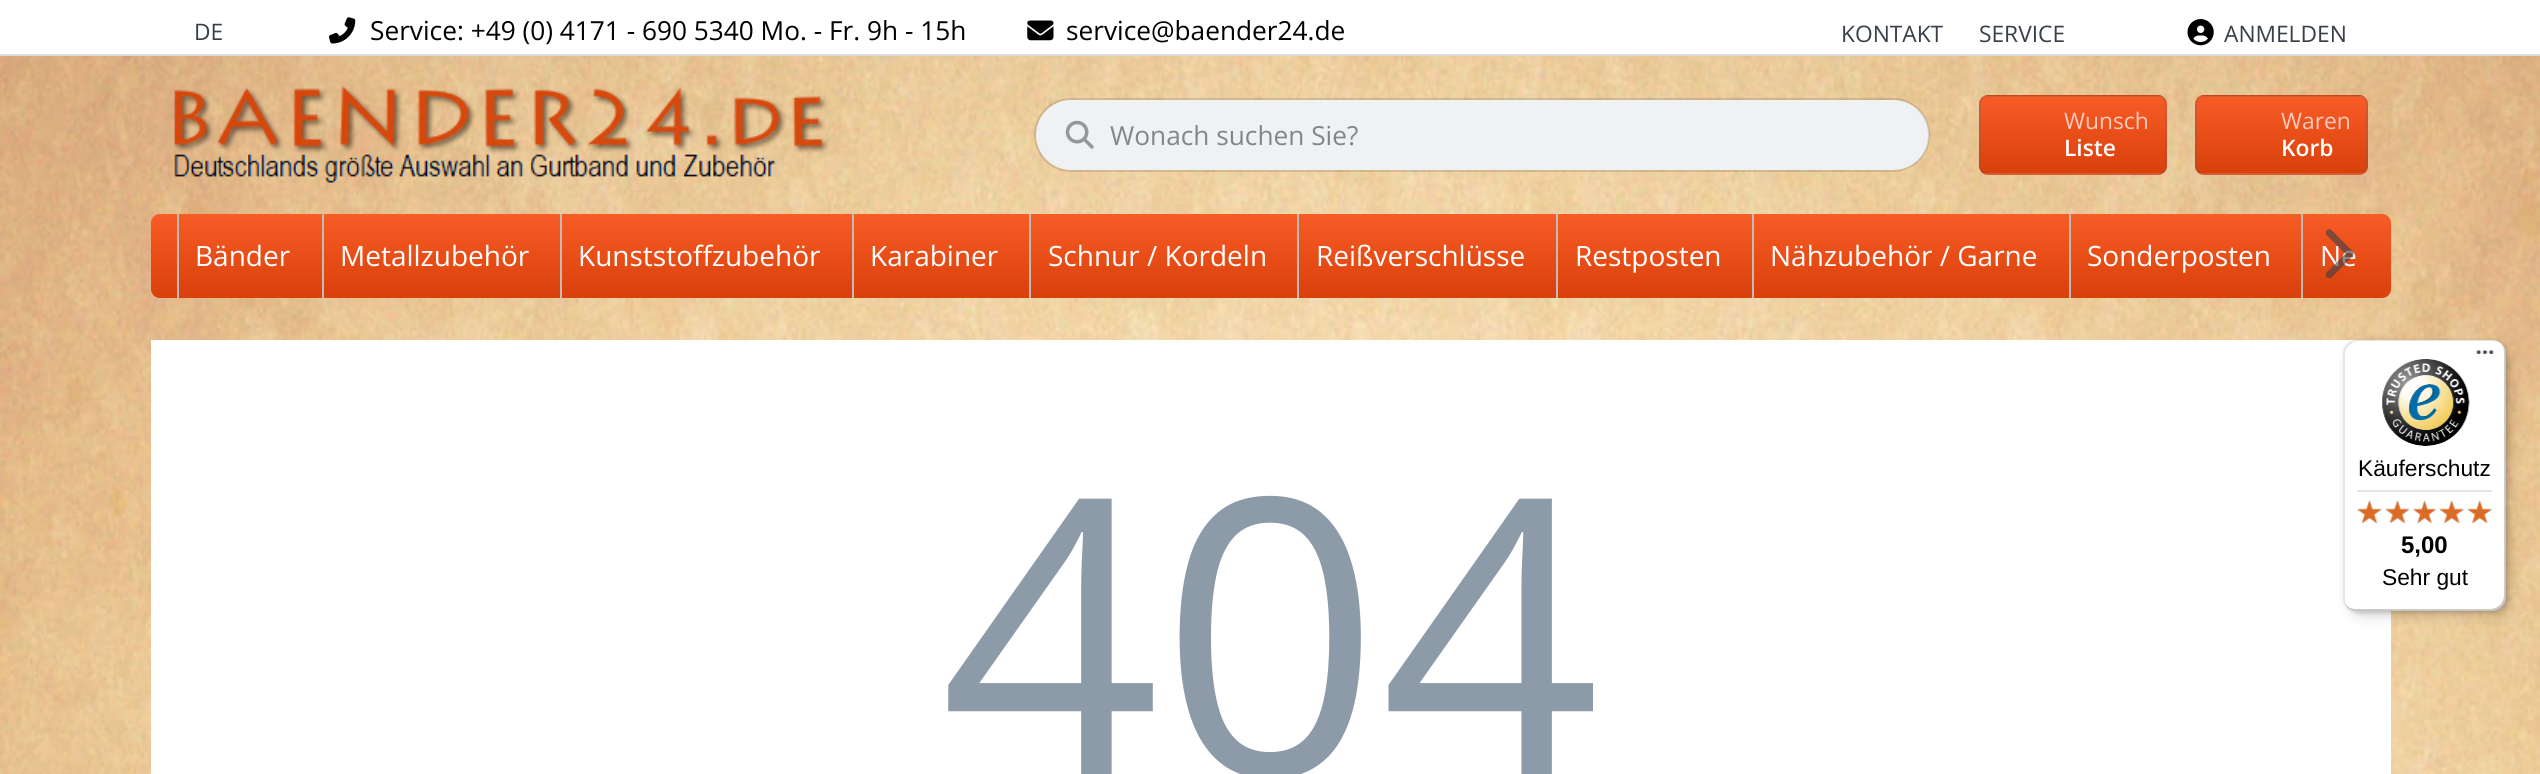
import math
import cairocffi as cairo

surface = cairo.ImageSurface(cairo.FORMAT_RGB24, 2540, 774)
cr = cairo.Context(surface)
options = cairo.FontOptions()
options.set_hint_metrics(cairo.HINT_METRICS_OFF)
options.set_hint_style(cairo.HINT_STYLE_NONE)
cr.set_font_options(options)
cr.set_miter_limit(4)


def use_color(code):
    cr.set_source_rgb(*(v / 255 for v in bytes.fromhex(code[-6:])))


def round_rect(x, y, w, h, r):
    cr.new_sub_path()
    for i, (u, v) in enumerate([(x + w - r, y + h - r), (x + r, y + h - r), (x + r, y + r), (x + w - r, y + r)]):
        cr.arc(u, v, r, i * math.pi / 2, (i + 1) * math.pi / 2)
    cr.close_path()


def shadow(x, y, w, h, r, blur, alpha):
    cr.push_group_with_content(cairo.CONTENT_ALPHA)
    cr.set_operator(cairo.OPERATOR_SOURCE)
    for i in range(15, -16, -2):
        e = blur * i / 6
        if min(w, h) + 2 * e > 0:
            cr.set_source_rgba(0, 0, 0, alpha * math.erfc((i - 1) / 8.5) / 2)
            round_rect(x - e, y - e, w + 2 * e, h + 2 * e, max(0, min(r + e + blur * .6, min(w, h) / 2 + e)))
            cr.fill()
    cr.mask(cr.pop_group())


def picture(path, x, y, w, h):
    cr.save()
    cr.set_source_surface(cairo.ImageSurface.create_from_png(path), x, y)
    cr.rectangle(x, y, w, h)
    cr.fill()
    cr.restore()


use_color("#ffffff")
cr.paint()
picture("img1.png", 0, 56, 2540, 718)
use_color("#dddddd")
cr.rectangle(0, 54, 2540, 2)
cr.fill()
cr.select_font_face("Open Sans")
cr.set_font_size(22.75)
use_color("#393f46")
cr.move_to(194, 40)
cr.show_text("DE")
picture("img2.png", 329, 17, 27, 27)
cr.set_font_size(26.25)
use_color("#000000")
cr.move_to(370, 40)
cr.show_text("Service: +49 (0) 4171 - 690 5340 Mo. - Fr. 9h - 15h")
picture("img3.png", 1027, 20, 27, 21)
cr.move_to(1066, 40)
cr.show_text("service@baender24.de")
cr.set_font_size(22.75)
use_color("#393f46")
cr.move_to(1841, 42)
cr.show_text("KONTAKT")
cr.move_to(1979, 42)
cr.show_text("SERVICE")
picture("img4.png", 2187, 19, 27, 27)
cr.move_to(2224, 42)
cr.show_text("ANMELDEN")
picture("img5.png", 173, 85, 656, 98)
use_color("#eff1f3")
round_rect(1036, 100, 893, 70, 35)
cr.fill()
round_rect(1035, 99, 894, 72, 36)
cr.set_source_rgba(0, 0, 0, 0.12)
cr.stroke()
picture("img6.png", 1065, 120, 29, 29)
cr.set_font_size(26.25)
use_color("#82868b")
cr.move_to(1110, 145)
cr.show_text("Wonach suchen Sie?")
cr.save()
round_rect(1979, 95, 188, 80, 9)
cr.clip()
gradient = cairo.LinearGradient(2073, 19, 2073, 96)
gradient.add_color_stop_rgba(0, 0.976, 0.361, 0.149, 1)
gradient.add_color_stop_rgba(1, 0.851, 0.251, 0.043, 1)
cr.set_source(gradient)
cr.rectangle(1979, 95, 188, 1)
cr.fill()
gradient = cairo.LinearGradient(2073, 96, 2073, 173)
gradient.add_color_stop_rgba(0, 0.976, 0.361, 0.149, 1)
gradient.add_color_stop_rgba(1, 0.851, 0.251, 0.043, 1)
cr.set_source(gradient)
cr.rectangle(1979, 96, 188, 77)
cr.fill()
gradient = cairo.LinearGradient(2073, 173, 2073, 250)
gradient.add_color_stop_rgba(0, 0.976, 0.361, 0.149, 1)
gradient.add_color_stop_rgba(1, 0.851, 0.251, 0.043, 1)
cr.set_source(gradient)
cr.rectangle(1979, 173, 188, 2)
cr.fill()
cr.restore()
round_rect(1980, 96, 186, 78, 8)
cr.set_source_rgba(0.376, 0.376, 0.376, 0.24)
cr.stroke()
cr.set_font_size(22.75)
use_color("#faccbd")
cr.move_to(2064, 129)
cr.show_text("Wunsch")
cr.select_font_face("Open Sans SemiBold")
use_color("#ffffff")
cr.move_to(2064, 156)
cr.show_text("Liste")
cr.save()
round_rect(2195, 95, 173, 80, 9)
cr.clip()
gradient = cairo.LinearGradient(2281, 19, 2281, 96)
gradient.add_color_stop_rgba(0, 0.976, 0.361, 0.149, 1)
gradient.add_color_stop_rgba(1, 0.851, 0.251, 0.043, 1)
cr.set_source(gradient)
cr.rectangle(2195, 95, 173, 1)
cr.fill()
gradient = cairo.LinearGradient(2281, 96, 2281, 173)
gradient.add_color_stop_rgba(0, 0.976, 0.361, 0.149, 1)
gradient.add_color_stop_rgba(1, 0.851, 0.251, 0.043, 1)
cr.set_source(gradient)
cr.rectangle(2195, 96, 173, 77)
cr.fill()
gradient = cairo.LinearGradient(2281, 173, 2281, 250)
gradient.add_color_stop_rgba(0, 0.976, 0.361, 0.149, 1)
gradient.add_color_stop_rgba(1, 0.851, 0.251, 0.043, 1)
cr.set_source(gradient)
cr.rectangle(2195, 173, 173, 2)
cr.fill()
cr.restore()
round_rect(2196, 96, 171, 78, 8)
cr.set_source_rgba(0.376, 0.376, 0.376, 0.24)
cr.stroke()
cr.select_font_face("Open Sans")
use_color("#faccbd")
cr.move_to(2281, 129)
cr.show_text("Waren")
cr.select_font_face("Open Sans SemiBold")
use_color("#ffffff")
cr.move_to(2281, 156)
cr.show_text("Korb")
gradient = cairo.LinearGradient(1271, 213, 1271, 298)
gradient.add_color_stop_rgba(0, 0.976, 0.361, 0.149, 1)
gradient.add_color_stop_rgba(1, 0.851, 0.251, 0.043, 1)
cr.set_source(gradient)
round_rect(151, 214, 2240, 84, 9)
cr.fill()
cr.select_font_face("Open Sans")
cr.set_font_size(28)
use_color("#ffffff")
cr.move_to(2320, 266)
cr.show_text("Ne")
picture("img7.png", 2325, 229, 29, 50)
use_color("#c0bdb6")
cr.rectangle(177, 214, 2, 84)
cr.fill()
use_color("#ffffff")
cr.move_to(195, 266)
cr.show_text("Bänder")
use_color("#c0bdb6")
cr.rectangle(322, 214, 2, 84)
cr.fill()
use_color("#ffffff")
cr.move_to(340, 266)
cr.show_text("Metallzubehör")
use_color("#c0bdb6")
cr.rectangle(560, 214, 2, 84)
cr.fill()
use_color("#ffffff")
cr.move_to(578, 266)
cr.show_text("Kunststoffzubehör")
use_color("#c0bdb6")
cr.rectangle(852, 214, 2, 84)
cr.fill()
use_color("#ffffff")
cr.move_to(870, 266)
cr.show_text("Karabiner")
use_color("#c0bdb6")
cr.rectangle(1029, 214, 2, 84)
cr.fill()
use_color("#ffffff")
cr.move_to(1048, 266)
cr.show_text("Schnur / Kordeln")
use_color("#c0bdb6")
cr.rectangle(1297, 214, 2, 84)
cr.fill()
use_color("#ffffff")
cr.move_to(1316, 266)
cr.show_text("Reißverschlüsse")
use_color("#c0bdb6")
cr.rectangle(1556, 214, 2, 84)
cr.fill()
use_color("#ffffff")
cr.move_to(1575, 266)
cr.show_text("Restposten")
use_color("#c0bdb6")
cr.rectangle(1752, 214, 2, 84)
cr.fill()
use_color("#ffffff")
cr.move_to(1770, 266)
cr.show_text("Nähzubehör / Garne")
use_color("#c0bdb6")
cr.rectangle(2069, 214, 2, 84)
cr.fill()
use_color("#ffffff")
cr.move_to(2087, 266)
cr.show_text("Sonderposten")
use_color("#c0bdb6")
cr.rectangle(2301, 214, 2, 84)
cr.fill()
use_color("#ffffff")
cr.rectangle(151, 340, 2240, 434)
cr.fill()
cr.set_font_size(385)
use_color("#8d9ba9")
cr.move_to(940, 775)
cr.show_text("404")
use_color("#000000")
shadow(2349, 345, 162, 271, 14, 7, 0.15)
shadow(2345, 341, 163, 272, 14, 2, 0.15)
use_color("#ffffff")
round_rect(2343, 340, 163, 271, 14)
cr.fill()
cr.set_source_rgba(0, 0, 0, 0.1)
cr.new_path()
cr.move_to(2359, 341)
cr.line_to(2494, 341)
cr.curve_to(2496, 341, 2499, 342, 2501, 343)
cr.curve_to(2498, 341, 2495, 340, 2492, 340)
cr.line_to(2357, 340)
cr.curve_to(2349, 340, 2343, 346, 2343, 354)
cr.line_to(2343, 597)
cr.curve_to(2343, 603, 2346, 607, 2351, 610)
cr.curve_to(2347, 607, 2345, 603, 2345, 598)
cr.line_to(2345, 355)
cr.curve_to(2345, 348, 2351, 341, 2359, 341)
cr.close_path()
cr.fill()
cr.set_source_rgba(0, 0, 0, 0.2)
cr.new_path()
cr.move_to(2344, 603)
cr.curve_to(2347, 608, 2351, 611, 2357, 611)
cr.line_to(2492, 611)
cr.curve_to(2500, 611, 2506, 605, 2506, 597)
cr.line_to(2506, 354)
cr.curve_to(2506, 350, 2504, 346, 2501, 344)
cr.curve_to(2503, 346, 2504, 349, 2504, 352)
cr.line_to(2504, 595)
cr.curve_to(2504, 603, 2498, 609, 2490, 609)
cr.line_to(2356, 609)
cr.curve_to(2351, 609, 2347, 607, 2344, 603)
cr.close_path()
cr.fill()
cr.set_source_rgba(0.196, 0.196, 0.196, 0.2)
cr.new_path()
cr.move_to(2346, 605)
cr.curve_to(2348, 609, 2352, 611, 2357, 611)
cr.line_to(2492, 611)
cr.curve_to(2500, 611, 2506, 605, 2506, 597)
cr.line_to(2506, 354)
cr.curve_to(2506, 351, 2505, 348, 2504, 346)
cr.curve_to(2505, 348, 2505, 350, 2505, 352)
cr.line_to(2505, 596)
cr.curve_to(2505, 603, 2499, 610, 2491, 610)
cr.line_to(2356, 610)
cr.curve_to(2352, 610, 2348, 608, 2346, 605)
cr.close_path()
cr.fill()
cr.set_source_rgba(1, 1, 1, 0.3)
cr.new_path()
cr.move_to(2346, 606)
cr.curve_to(2348, 609, 2352, 611, 2357, 611)
cr.line_to(2492, 611)
cr.curve_to(2500, 611, 2506, 605, 2506, 597)
cr.line_to(2506, 354)
cr.curve_to(2506, 350, 2505, 347, 2502, 345)
cr.curve_to(2504, 347, 2505, 350, 2505, 353)
cr.line_to(2505, 596)
cr.curve_to(2505, 604, 2499, 610, 2491, 610)
cr.line_to(2356, 610)
cr.curve_to(2352, 610, 2349, 608, 2346, 606)
cr.close_path()
cr.fill()
picture("img8.png", 2476, 350, 18, 4)
picture("img9.png", 2382, 359, 88, 87)
cr.select_font_face("Liberation Sans")
cr.set_font_size(22.75)
use_color("#000000")
cr.move_to(2358, 476)
cr.show_text("Käuferschutz")
use_color("#e5e5e5")
cr.rectangle(2357, 490, 135, 2)
cr.fill()
picture("img10.png", 2357, 501, 25, 22)
picture("img11.png", 2385, 501, 25, 22)
picture("img12.png", 2413, 501, 23, 22)
picture("img13.png", 2439, 500, 25, 23)
picture("img14.png", 2468, 501, 24, 22)
picture("img15.png", 2357, 500, 25, 24)
picture("img16.png", 2385, 500, 25, 24)
picture("img17.png", 2413, 500, 23, 24)
picture("img18.png", 2439, 500, 25, 24)
picture("img19.png", 2467, 500, 25, 24)
cr.select_font_face("Liberation Sans", cairo.FONT_SLANT_NORMAL, cairo.FONT_WEIGHT_BOLD)
cr.set_font_size(24)
use_color("#000000")
cr.move_to(2401, 553)
cr.show_text("5,00")
cr.select_font_face("Liberation Sans")
cr.set_font_size(22.75)
cr.move_to(2382, 585)
cr.show_text("Sehr gut")
surface.write_to_png("result.png")
